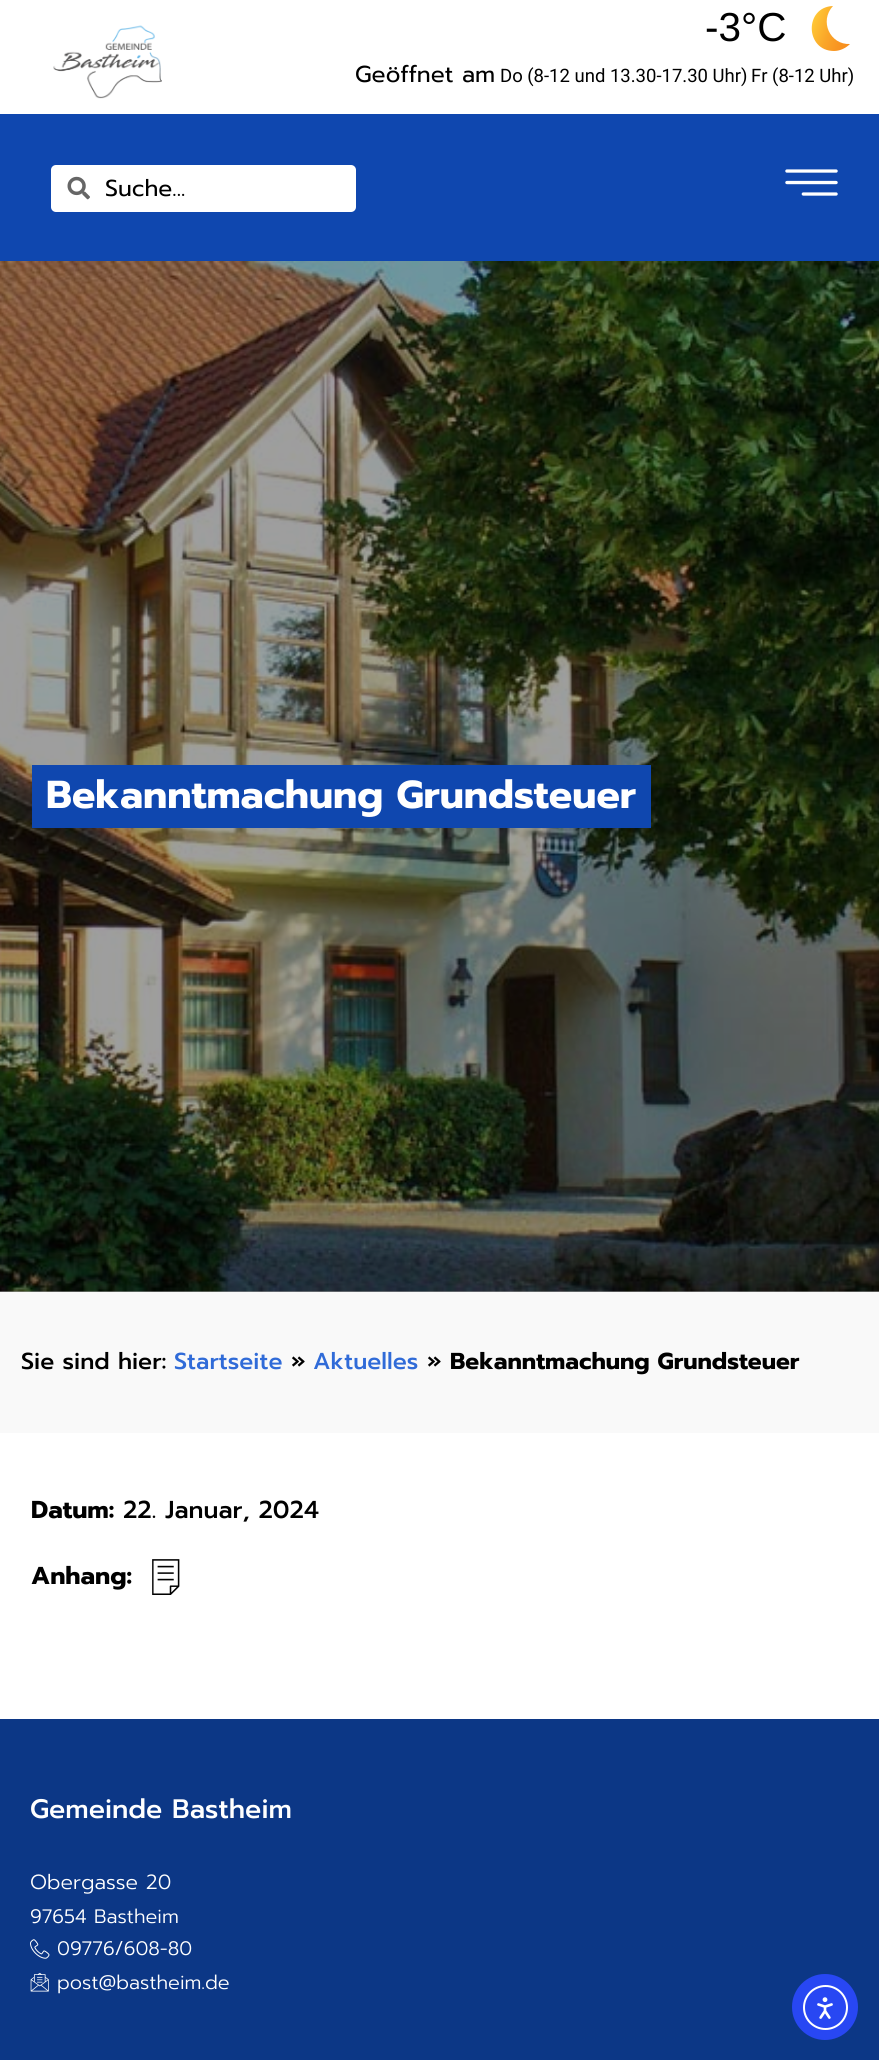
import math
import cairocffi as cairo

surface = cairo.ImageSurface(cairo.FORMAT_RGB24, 879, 2060)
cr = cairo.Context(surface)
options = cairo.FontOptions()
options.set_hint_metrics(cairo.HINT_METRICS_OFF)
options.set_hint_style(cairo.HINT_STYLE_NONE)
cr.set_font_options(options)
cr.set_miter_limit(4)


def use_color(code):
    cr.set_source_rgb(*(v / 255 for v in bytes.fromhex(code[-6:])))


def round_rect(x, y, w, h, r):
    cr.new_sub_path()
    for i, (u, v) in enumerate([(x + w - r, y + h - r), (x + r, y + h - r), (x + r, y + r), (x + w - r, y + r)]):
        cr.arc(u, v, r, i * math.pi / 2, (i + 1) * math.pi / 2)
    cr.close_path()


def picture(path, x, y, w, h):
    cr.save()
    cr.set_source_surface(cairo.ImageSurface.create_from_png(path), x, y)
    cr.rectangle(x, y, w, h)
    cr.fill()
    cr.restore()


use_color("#ffffff")
cr.paint()
use_color("#9e9e9e")
cr.rectangle(0, 1291, 879, 1)
cr.fill()
picture("img1.png", 53, 25, 109, 74)
cr.select_font_face("Liberation Sans")
cr.set_font_size(40.5)
use_color("#000000")
cr.move_to(705, 41)
cr.show_text("-3°C")
gradient = cairo.LinearGradient(854, 36, 814, 21)
gradient.add_color_stop_rgba(0, 0.969, 0.557, 0.118, 1)
gradient.add_color_stop_rgba(0.25, 0.973, 0.58, 0.129, 1)
gradient.add_color_stop_rgba(0.58, 0.98, 0.647, 0.157, 1)
gradient.add_color_stop_rgba(0.95, 0.996, 0.757, 0.2, 1)
gradient.add_color_stop_rgba(1, 1, 0.773, 0.208, 1)
cr.set_source(gradient)
cr.new_path()
cr.move_to(850, 44)
cr.curve_to(846, 48, 840, 51, 834, 51)
cr.curve_to(805, 51, 804, 7, 833, 6)
cr.curve_to(819, 21, 830, 45, 850, 44)
cr.close_path()
cr.fill()
cr.select_font_face("Prompt")
cr.set_font_size(23.1)
use_color("#000000")
cr.move_to(355, 82)
cr.show_text("Geöffnet am")
cr.select_font_face("Roboto")
cr.set_font_size(18.5)
cr.move_to(500, 82)
cr.show_text("Do (8-12 und 13.30-17.30 Uhr)")
cr.move_to(751, 82)
cr.show_text("Fr (8-12 Uhr)")
use_color("#0f47af")
cr.rectangle(0, 114, 879, 147)
cr.fill()
use_color("#ffffff")
round_rect(51, 165, 305, 47, 5)
cr.fill()
picture("img2.png", 67, 176, 23, 24)
cr.select_font_face("Prompt")
cr.set_font_size(23.1)
use_color("#000000")
cr.move_to(105, 196)
cr.show_text("Suche...")
picture("img3.png", 785, 169, 53, 27)
picture("img4.png", 0, 261, 879, 1031)
use_color("#0f47af")
cr.rectangle(32, 765, 619, 63)
cr.fill()
cr.select_font_face("Prompt", cairo.FONT_SLANT_NORMAL, cairo.FONT_WEIGHT_BOLD)
cr.set_font_size(39)
use_color("#ffffff")
cr.move_to(46, 808)
cr.show_text("Bekanntmachung Grundsteuer")
use_color("#f9f9f9")
cr.rectangle(0, 1292, 879, 141)
cr.fill()
cr.select_font_face("Prompt Medium")
cr.set_font_size(23.1)
use_color("#000000")
cr.move_to(21, 1369)
cr.show_text("Sie sind hier:")
use_color("#306bd8")
cr.move_to(174, 1369)
cr.show_text("Startseite")
use_color("#000000")
cr.move_to(291, 1369)
cr.show_text("»")
use_color("#306bd8")
cr.move_to(313, 1369)
cr.show_text("Aktuelles")
use_color("#000000")
cr.move_to(427, 1369)
cr.show_text("»")
cr.select_font_face("Prompt", cairo.FONT_SLANT_NORMAL, cairo.FONT_WEIGHT_BOLD)
cr.move_to(450, 1369)
cr.show_text("Bekanntmachung Grundsteuer")
cr.set_font_size(24.5)
cr.move_to(31, 1518)
cr.show_text("Datum:")
cr.select_font_face("Prompt Medium")
cr.move_to(123, 1518)
cr.show_text("22. Januar, 2024")
cr.select_font_face("Prompt", cairo.FONT_SLANT_NORMAL, cairo.FONT_WEIGHT_BOLD)
cr.move_to(31, 1584)
cr.show_text("Anhang:")
picture("img5.png", 152, 1559, 28, 36)
use_color("#0c3786")
cr.rectangle(0, 1719, 879, 341)
cr.fill()
cr.select_font_face("Prompt Medium")
cr.set_font_size(26.75)
use_color("#ffffff")
cr.move_to(30, 1818)
cr.show_text("Gemeinde Bastheim")
cr.select_font_face("Prompt Light")
cr.set_font_size(20.5)
cr.move_to(30, 1889)
cr.show_text("Obergasse 20")
cr.set_font_size(19.5)
cr.move_to(30, 1923)
cr.show_text("97654 Bastheim")
picture("img6.png", 30, 1939, 20, 20)
cr.move_to(57, 1955)
cr.show_text("09776/608-80")
picture("img7.png", 30, 1972, 19, 20)
cr.move_to(57, 1989)
cr.show_text("post@bastheim.de")
use_color("#2847f3")
cr.new_path()
cr.arc(825, 2007, 33, 0, 2 * math.pi)
cr.fill()
cr.arc(825.5, 2007.5, 21.5, 0, 2 * math.pi)
use_color("#ffffff")
cr.stroke()
picture("img8.png", 817, 1997, 16, 22)
surface.write_to_png("result.png")
